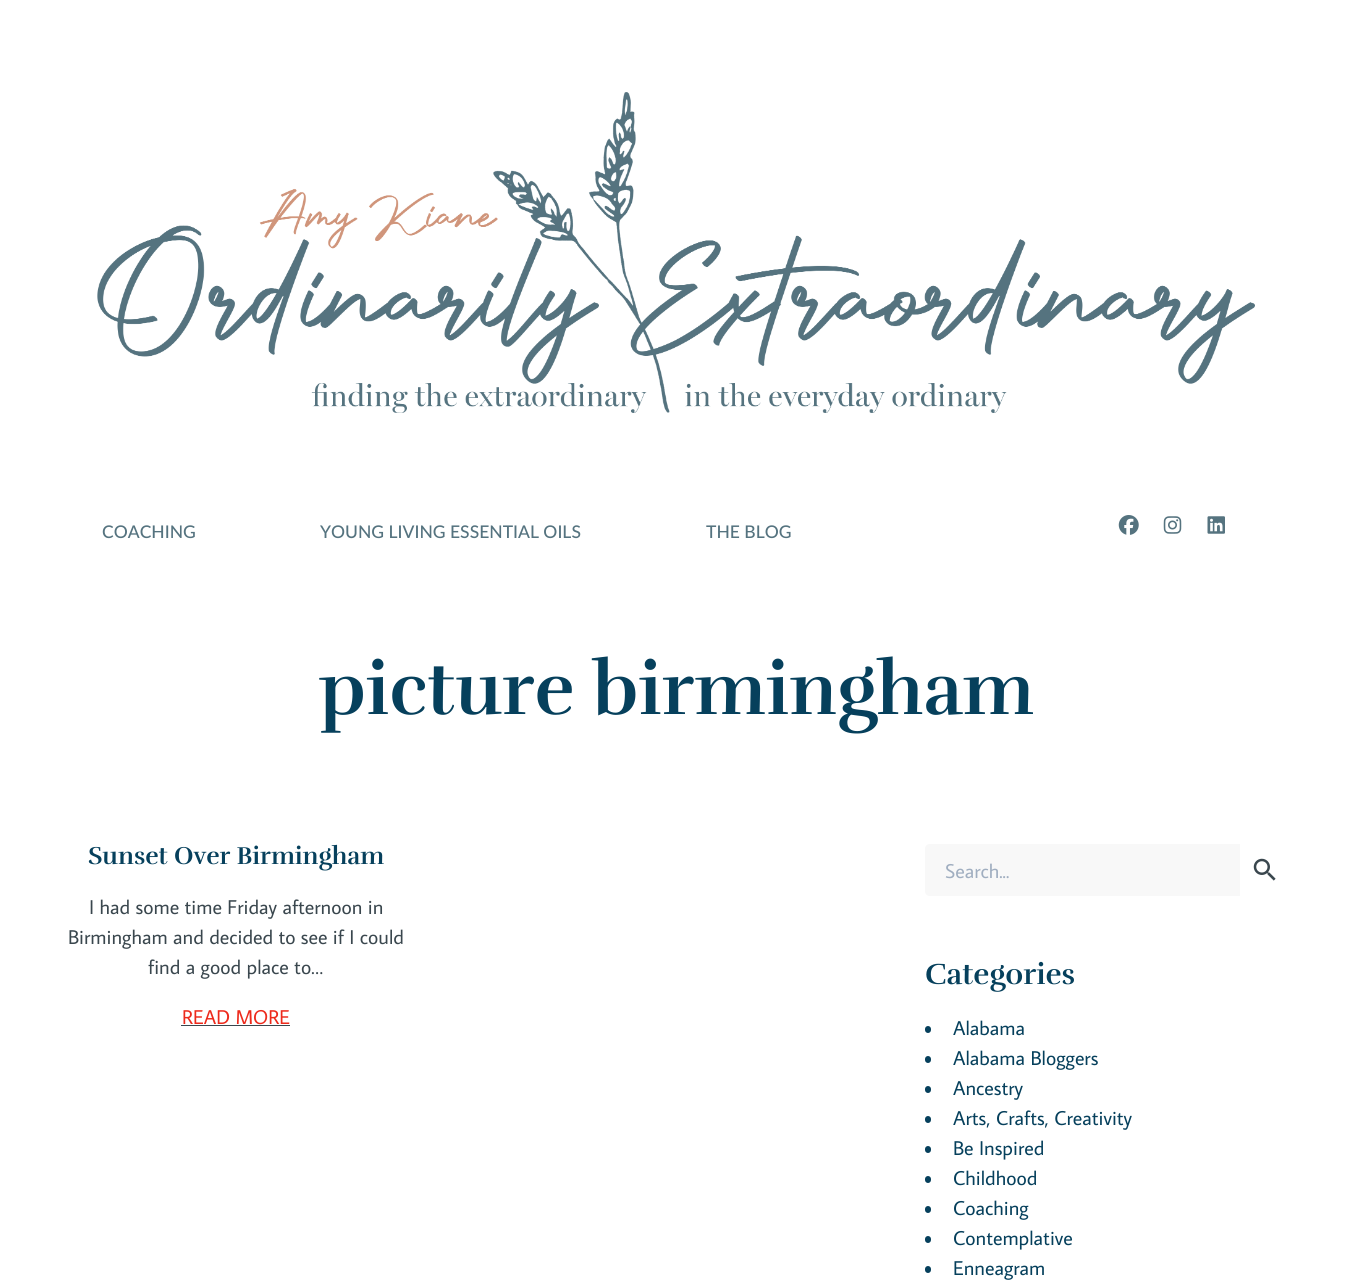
import math
import cairocffi as cairo

surface = cairo.ImageSurface(cairo.FORMAT_RGB24, 1352, 1283)
cr = cairo.Context(surface)
options = cairo.FontOptions()
options.set_hint_metrics(cairo.HINT_METRICS_OFF)
options.set_hint_style(cairo.HINT_STYLE_NONE)
cr.set_font_options(options)
cr.set_miter_limit(4)


def use_color(code):
    cr.set_source_rgb(*(v / 255 for v in bytes.fromhex(code[-6:])))


def round_rect(x, y, w, h, r):
    cr.new_sub_path()
    for i, (u, v) in enumerate([(x + w - r, y + h - r), (x + r, y + h - r), (x + r, y + r), (x + w - r, y + r)]):
        cr.arc(u, v, r, i * math.pi / 2, (i + 1) * math.pi / 2)
    cr.close_path()


def picture(path, x, y, w, h):
    cr.save()
    cr.set_source_surface(cairo.ImageSurface.create_from_png(path), x, y)
    cr.rectangle(x, y, w, h)
    cr.fill()
    cr.restore()


use_color("#ffffff")
cr.paint()
picture("img1.png", 97, 92, 1158, 321)
cr.select_font_face("Lato Medium")
cr.set_font_size(17.5)
use_color("#55737f")
cr.move_to(102, 538)
cr.show_text("COACHING")
cr.move_to(320, 538)
cr.show_text("YOUNG LIVING ESSENTIAL OILS")
cr.move_to(706, 538)
cr.show_text("THE BLOG")
picture("img2.png", 1118, 515, 21, 20)
picture("img3.png", 1163, 516, 19, 18)
picture("img4.png", 1207, 516, 18, 18)
cr.select_font_face("Rufina", cairo.FONT_SLANT_NORMAL, cairo.FONT_WEIGHT_BOLD)
cr.set_font_size(75)
use_color("#06405c")
cr.move_to(319, 714)
cr.show_text("picture birmingham")
cr.set_font_size(25)
cr.move_to(88, 864)
cr.show_text("Sunset Over Birmingham")
cr.select_font_face("Average Sans")
cr.set_font_size(20)
use_color("#3a474e")
cr.move_to(89, 914)
cr.show_text("I had some time Friday afternoon in")
cr.move_to(68, 944)
cr.show_text("Birmingham and decided to see if I could")
cr.move_to(148, 974)
cr.show_text("find a good place to…")
use_color("#ed2a1c")
cr.move_to(182, 1024)
cr.show_text("READ MORE")
use_color("#3a474e")
cr.rectangle(181, 1025, 109, 1)
cr.fill()
use_color("#f8f8f8")
cr.new_path()
cr.move_to(930, 844)
cr.line_to(1240, 844)
cr.line_to(1240, 896)
cr.line_to(930, 896)
cr.curve_to(927, 896, 925, 894, 925, 891)
cr.line_to(925, 849)
cr.curve_to(925, 846, 927, 844, 930, 844)
cr.close_path()
cr.fill()
use_color("#a0aec0")
cr.move_to(945, 878)
cr.show_text("Search...")
picture("img5.png", 1253, 858, 23, 23)
cr.select_font_face("Rufina", cairo.FONT_SLANT_NORMAL, cairo.FONT_WEIGHT_BOLD)
cr.set_font_size(30)
use_color("#06405c")
cr.move_to(925, 984)
cr.show_text("Categories")
round_rect(925, 1026, 6, 7, 3)
cr.fill()
cr.select_font_face("Average Sans")
cr.set_font_size(20)
cr.move_to(953, 1035)
cr.show_text("Alabama")
round_rect(925, 1056, 6, 7, 3)
cr.fill()
cr.move_to(953, 1065)
cr.show_text("Alabama Bloggers")
round_rect(925, 1086, 6, 7, 3)
cr.fill()
cr.move_to(953, 1095)
cr.show_text("Ancestry")
round_rect(925, 1116, 6, 7, 3)
cr.fill()
cr.move_to(953, 1125)
cr.show_text("Arts, Crafts, Creativity")
round_rect(925, 1146, 6, 7, 3)
cr.fill()
cr.move_to(953, 1155)
cr.show_text("Be Inspired")
round_rect(925, 1176, 6, 7, 3)
cr.fill()
cr.move_to(953, 1185)
cr.show_text("Childhood")
round_rect(925, 1206, 6, 7, 3)
cr.fill()
cr.move_to(953, 1215)
cr.show_text("Coaching")
round_rect(925, 1236, 6, 7, 3)
cr.fill()
cr.move_to(953, 1245)
cr.show_text("Contemplative")
round_rect(925, 1266, 6, 7, 3)
cr.fill()
cr.move_to(953, 1275)
cr.show_text("Enneagram")
surface.write_to_png("result.png")
